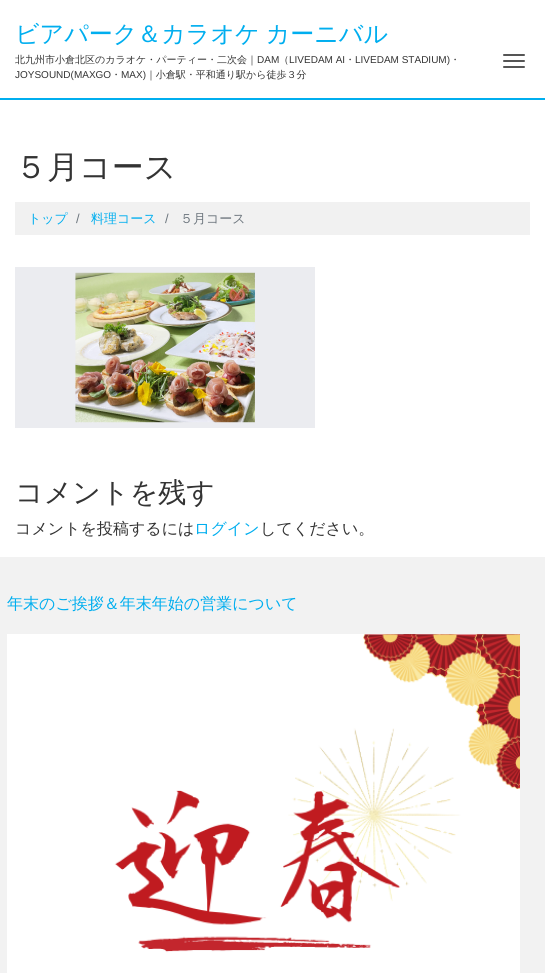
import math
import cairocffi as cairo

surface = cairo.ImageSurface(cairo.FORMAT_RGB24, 545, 973)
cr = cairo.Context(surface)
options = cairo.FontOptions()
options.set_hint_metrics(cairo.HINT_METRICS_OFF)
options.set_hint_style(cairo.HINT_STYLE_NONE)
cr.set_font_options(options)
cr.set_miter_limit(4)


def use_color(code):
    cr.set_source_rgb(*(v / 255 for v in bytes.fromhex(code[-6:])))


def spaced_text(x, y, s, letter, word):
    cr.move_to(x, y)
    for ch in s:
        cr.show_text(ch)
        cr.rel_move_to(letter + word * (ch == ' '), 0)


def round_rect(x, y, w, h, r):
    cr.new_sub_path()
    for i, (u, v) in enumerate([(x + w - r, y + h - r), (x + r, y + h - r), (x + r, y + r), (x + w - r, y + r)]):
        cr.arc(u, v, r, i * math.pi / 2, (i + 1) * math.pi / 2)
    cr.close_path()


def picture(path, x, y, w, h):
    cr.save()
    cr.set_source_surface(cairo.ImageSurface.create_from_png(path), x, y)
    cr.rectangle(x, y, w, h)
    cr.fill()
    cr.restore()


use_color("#ffffff")
cr.paint()
cr.select_font_face("WenQuanYi Zen Hei Medium")
cr.set_font_size(24)
use_color("#00aeef")
spaced_text(15, 42, "ビアパーク＆カラオケ カーニバル", 0, -1)
cr.set_font_size(10)
use_color("#333333")
cr.move_to(15, 63)
cr.show_text("北九州市小倉北区のカラオケ・パーティー・二次会｜")
cr.select_font_face("Liberation Sans")
cr.move_to(257, 63)
cr.show_text("DAM")
cr.select_font_face("WenQuanYi Zen Hei Medium")
cr.move_to(279, 63)
cr.show_text("（")
cr.select_font_face("Liberation Sans")
cr.move_to(289, 63)
cr.show_text("LIVEDAM AI")
cr.select_font_face("WenQuanYi Zen Hei Medium")
cr.move_to(345, 63)
cr.show_text("・")
cr.select_font_face("Liberation Sans")
cr.move_to(355, 63)
cr.show_text("LIVEDAM STADIUM)")
cr.select_font_face("WenQuanYi Zen Hei Medium")
cr.move_to(450, 63)
cr.show_text("・")
cr.select_font_face("Liberation Sans")
cr.move_to(15, 78)
cr.show_text("JOYSOUND(MAXGO")
cr.select_font_face("WenQuanYi Zen Hei Medium")
cr.move_to(111, 78)
cr.show_text("・")
cr.select_font_face("Liberation Sans")
cr.move_to(121, 78)
cr.show_text("MAX)")
cr.select_font_face("WenQuanYi Zen Hei Medium")
cr.move_to(146, 78)
cr.show_text("｜小倉駅・平和通り駅から徒歩３分")
use_color("#00aeef")
cr.rectangle(0, 98, 545, 2)
cr.fill()
use_color("#555555")
round_rect(503, 54, 22, 2, 1)
cr.fill()
round_rect(503, 60, 22, 2, 1)
cr.fill()
round_rect(503, 66, 22, 2, 1)
cr.fill()
cr.set_font_size(32)
use_color("#333333")
cr.move_to(15, 178)
cr.show_text("５月コース")
use_color("#f1f1f1")
cr.rectangle(15, 202, 515, 33)
cr.fill()
cr.set_font_size(13)
use_color("#00aeef")
cr.move_to(28, 223)
cr.show_text("トップ")
cr.select_font_face("Liberation Sans")
use_color("#6c757d")
cr.move_to(76, 223)
cr.show_text("/")
cr.select_font_face("WenQuanYi Zen Hei Medium")
use_color("#00aeef")
cr.move_to(91, 223)
cr.show_text("料理コース")
cr.select_font_face("Liberation Sans")
use_color("#6c757d")
cr.move_to(165, 223)
cr.show_text("/")
cr.select_font_face("WenQuanYi Zen Hei Medium")
cr.move_to(180, 223)
cr.show_text("５月コース")
picture("img1.png", 15, 267, 300, 161)
cr.set_font_size(28)
use_color("#333333")
cr.move_to(15, 502)
cr.show_text("コメントを残す")
cr.set_font_size(16)
cr.move_to(15, 534)
cr.show_text("コメントを投稿するには")
use_color("#00aeef")
cr.move_to(194, 534)
cr.show_text("ログイン")
use_color("#333333")
cr.move_to(260, 534)
cr.show_text("してください。")
use_color("#f2f2f2")
cr.rectangle(0, 557, 545, 416)
cr.fill()
use_color("#00aeef")
cr.move_to(7, 609)
cr.show_text("年末のご挨拶＆年末年始の営業について")
picture("img2.png", 7, 634, 513, 339)
surface.write_to_png("result.png")
